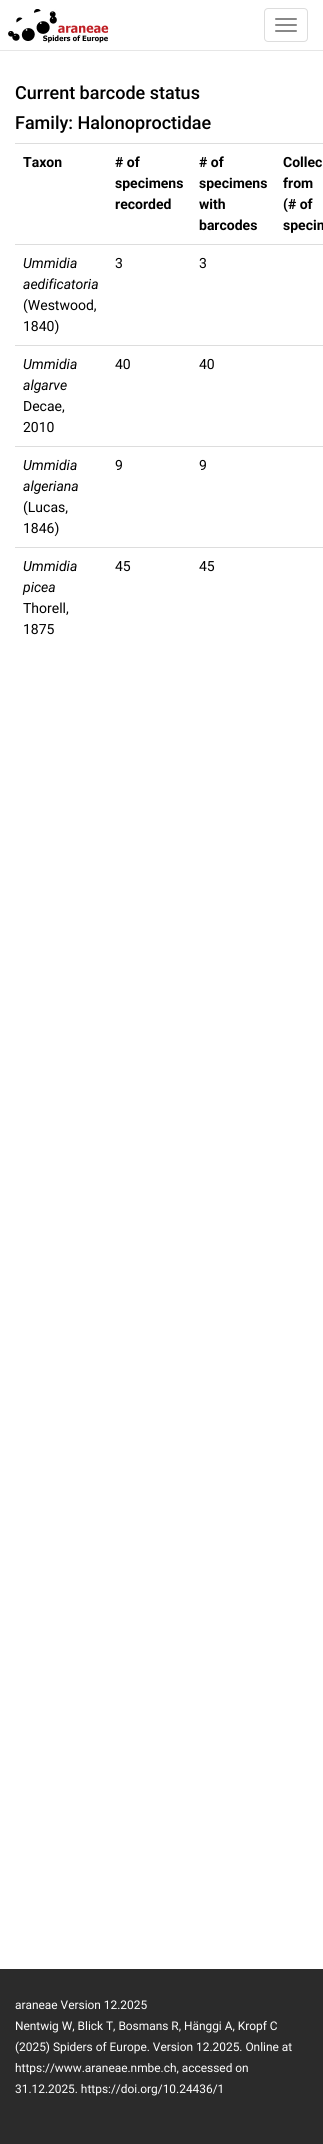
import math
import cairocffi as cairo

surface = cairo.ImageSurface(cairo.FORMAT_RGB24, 323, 2144)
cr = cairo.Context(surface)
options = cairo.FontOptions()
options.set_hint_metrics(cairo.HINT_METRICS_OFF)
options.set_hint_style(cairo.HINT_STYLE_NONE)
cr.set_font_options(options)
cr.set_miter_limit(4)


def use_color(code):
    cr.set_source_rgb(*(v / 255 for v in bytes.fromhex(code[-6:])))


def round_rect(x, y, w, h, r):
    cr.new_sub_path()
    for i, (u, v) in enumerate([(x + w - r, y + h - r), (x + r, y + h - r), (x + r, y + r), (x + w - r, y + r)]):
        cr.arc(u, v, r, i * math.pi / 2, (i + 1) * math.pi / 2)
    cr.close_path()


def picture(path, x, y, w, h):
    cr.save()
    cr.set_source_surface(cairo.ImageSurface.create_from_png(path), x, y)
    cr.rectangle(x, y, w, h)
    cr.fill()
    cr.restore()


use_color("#ffffff")
cr.paint()
use_color("#e6e6e6")
cr.rectangle(0, 50, 323, 1)
cr.fill()
picture("img1.png", 8, 9, 101, 34)
round_rect(264.5, 8.5, 43, 33, 3.5)
use_color("#dddddd")
cr.set_line_width(1)
cr.stroke()
use_color("#888888")
round_rect(275, 18, 22, 2, 1)
cr.fill()
round_rect(275, 24, 22, 2, 1)
cr.fill()
round_rect(275, 30, 22, 2, 1)
cr.fill()
cr.select_font_face("Roboto Medium")
cr.set_font_size(18)
use_color("#000000")
cr.move_to(15, 99)
cr.show_text("Current barcode status")
cr.move_to(15, 129)
cr.show_text("Family: Halonoproctidae")
cr.select_font_face("Roboto", cairo.FONT_SLANT_NORMAL, cairo.FONT_WEIGHT_BOLD)
cr.set_font_size(14)
cr.move_to(23, 167)
cr.show_text("Taxon")
cr.move_to(115, 167)
cr.show_text("# of")
cr.move_to(115, 188)
cr.show_text("specimens")
cr.move_to(115, 209)
cr.show_text("recorded")
cr.move_to(199, 167)
cr.show_text("# of")
cr.move_to(199, 188)
cr.show_text("specimens")
cr.move_to(199, 209)
cr.show_text("with")
cr.move_to(199, 230)
cr.show_text("barcodes")
use_color("#dddddd")
cr.rectangle(15, 143, 308, 1)
cr.fill()
use_color("#000000")
cr.move_to(283, 167)
cr.show_text("Collec")
cr.move_to(283, 188)
cr.show_text("from")
cr.move_to(283, 209)
cr.show_text("(# of")
cr.move_to(283, 230)
cr.show_text("specim")
use_color("#dddddd")
cr.rectangle(15, 244, 308, 1)
cr.fill()
cr.select_font_face("Roboto", cairo.FONT_SLANT_ITALIC)
use_color("#000000")
cr.move_to(23, 268)
cr.show_text("Ummidia")
cr.move_to(23, 289)
cr.show_text("aedificatoria")
cr.select_font_face("Roboto")
cr.move_to(23, 310)
cr.show_text("(Westwood,")
cr.move_to(23, 331)
cr.show_text("1840)")
cr.move_to(115, 268)
cr.show_text("3")
cr.move_to(199, 268)
cr.show_text("3")
use_color("#dddddd")
cr.rectangle(15, 345, 308, 1)
cr.fill()
cr.select_font_face("Roboto", cairo.FONT_SLANT_ITALIC)
use_color("#000000")
cr.move_to(23, 369)
cr.show_text("Ummidia")
cr.move_to(23, 390)
cr.show_text("algarve")
cr.select_font_face("Roboto")
cr.move_to(23, 411)
cr.show_text("Decae,")
cr.move_to(23, 432)
cr.show_text("2010")
cr.move_to(115, 369)
cr.show_text("40")
cr.move_to(199, 369)
cr.show_text("40")
use_color("#dddddd")
cr.rectangle(15, 446, 308, 1)
cr.fill()
cr.select_font_face("Roboto", cairo.FONT_SLANT_ITALIC)
use_color("#000000")
cr.move_to(23, 470)
cr.show_text("Ummidia")
cr.move_to(23, 491)
cr.show_text("algeriana")
cr.select_font_face("Roboto")
cr.move_to(23, 512)
cr.show_text("(Lucas,")
cr.move_to(23, 533)
cr.show_text("1846)")
cr.move_to(115, 470)
cr.show_text("9")
cr.move_to(199, 470)
cr.show_text("9")
use_color("#dddddd")
cr.rectangle(15, 547, 308, 1)
cr.fill()
cr.select_font_face("Roboto", cairo.FONT_SLANT_ITALIC)
use_color("#000000")
cr.move_to(23, 571)
cr.show_text("Ummidia")
cr.move_to(23, 592)
cr.show_text("picea")
cr.select_font_face("Roboto")
cr.move_to(23, 613)
cr.show_text("Thorell,")
cr.move_to(23, 634)
cr.show_text("1875")
cr.move_to(115, 571)
cr.show_text("45")
cr.move_to(199, 571)
cr.show_text("45")
use_color("#2b2b2b")
cr.rectangle(0, 1969, 323, 175)
cr.fill()
cr.set_font_size(11.9)
use_color("#ffffff")
cr.move_to(15, 2009)
cr.show_text("araneae Version 12.2025")
cr.move_to(15, 2030)
cr.show_text("Nentwig W, Blick T, Bosmans R, Hänggi A, Kropf C")
cr.move_to(15, 2051)
cr.show_text("(2025) Spiders of Europe. Version 12.2025. Online at")
cr.move_to(15, 2072)
cr.show_text("https://www.araneae.nmbe.ch, accessed on")
cr.move_to(15, 2093)
cr.show_text("31.12.2025. https://doi.org/10.24436/1")
surface.write_to_png("result.png")
